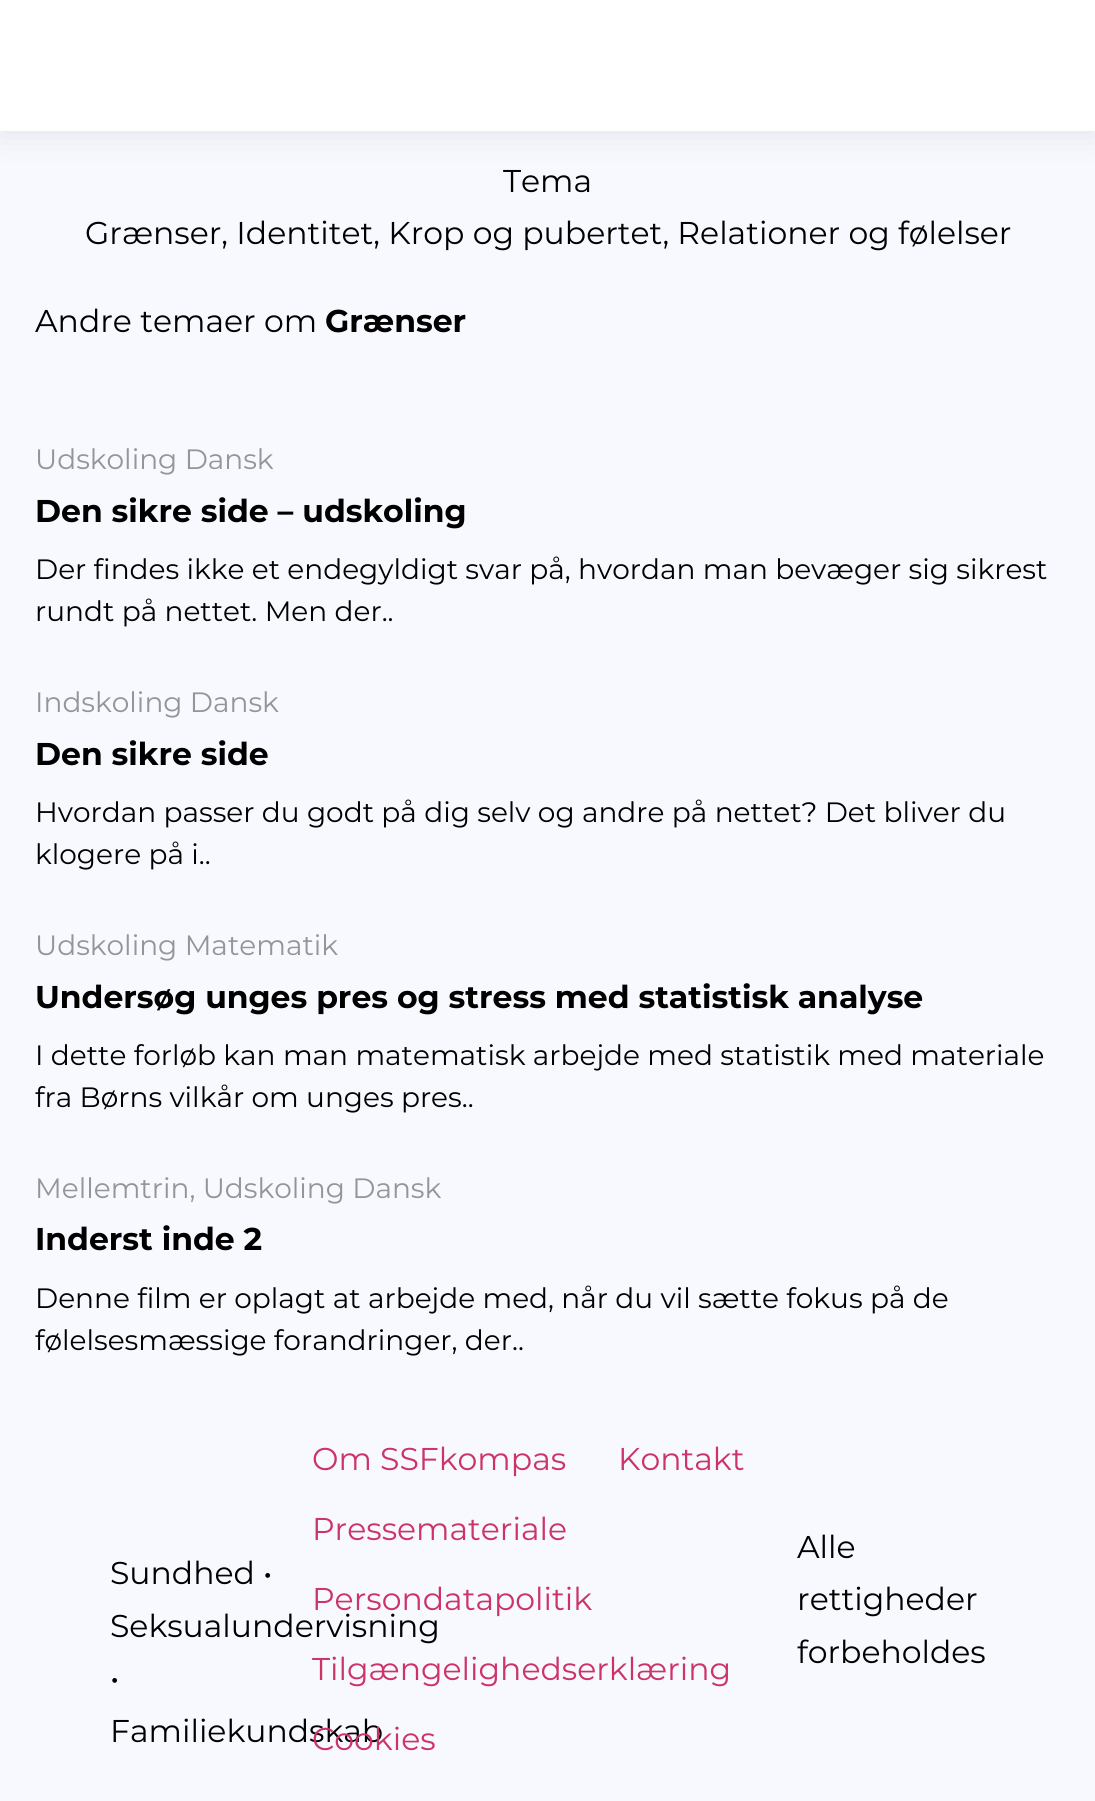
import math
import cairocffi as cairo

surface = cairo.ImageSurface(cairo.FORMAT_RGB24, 1095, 1801)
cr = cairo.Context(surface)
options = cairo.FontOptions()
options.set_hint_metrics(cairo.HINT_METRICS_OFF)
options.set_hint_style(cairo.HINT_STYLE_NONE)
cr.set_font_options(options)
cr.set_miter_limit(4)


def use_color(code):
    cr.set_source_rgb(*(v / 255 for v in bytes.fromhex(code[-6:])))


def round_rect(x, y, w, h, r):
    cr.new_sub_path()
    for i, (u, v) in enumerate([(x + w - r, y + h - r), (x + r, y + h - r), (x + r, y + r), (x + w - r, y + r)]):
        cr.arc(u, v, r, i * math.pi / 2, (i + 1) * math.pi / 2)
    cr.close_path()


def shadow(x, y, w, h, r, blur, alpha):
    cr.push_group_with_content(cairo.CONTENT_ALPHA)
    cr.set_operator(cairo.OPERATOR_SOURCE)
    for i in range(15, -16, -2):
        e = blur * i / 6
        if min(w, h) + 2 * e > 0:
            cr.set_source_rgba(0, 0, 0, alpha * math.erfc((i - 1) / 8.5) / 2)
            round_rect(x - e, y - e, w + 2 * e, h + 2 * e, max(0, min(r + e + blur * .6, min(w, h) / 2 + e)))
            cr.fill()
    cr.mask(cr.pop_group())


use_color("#f7f9ff")
cr.paint()
use_color("#000000")
shadow(0, 0, 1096, 131, 0, 17.5, 0.1)
use_color("#ffffff")
cr.rectangle(0, 0, 1095, 131)
cr.fill()
cr.select_font_face("Montserrat")
cr.set_font_size(31.5)
use_color("#000000")
cr.move_to(503, 192)
cr.show_text("Tema")
cr.move_to(85, 244)
cr.show_text("Grænser, Identitet, Krop og pubertet, Relationer og følelser")
cr.move_to(35, 332)
cr.show_text("Andre temaer om")
cr.select_font_face("Montserrat", cairo.FONT_SLANT_NORMAL, cairo.FONT_WEIGHT_BOLD)
cr.move_to(325, 332)
cr.show_text("Grænser")
cr.select_font_face("Montserrat")
cr.set_font_size(28)
use_color("#949599")
cr.move_to(35, 469)
cr.show_text("Udskoling Dansk")
cr.select_font_face("Montserrat", cairo.FONT_SLANT_NORMAL, cairo.FONT_WEIGHT_BOLD)
cr.set_font_size(31.5)
use_color("#000000")
cr.move_to(35, 522)
cr.show_text("Den sikre side – udskoling")
cr.select_font_face("Montserrat")
cr.set_font_size(28)
cr.move_to(35, 579)
cr.show_text("Der findes ikke et endegyldigt svar på, hvordan man bevæger sig sikrest")
cr.move_to(35, 621)
cr.show_text("rundt på nettet. Men der..")
use_color("#949599")
cr.move_to(35, 712)
cr.show_text("Indskoling Dansk")
cr.select_font_face("Montserrat", cairo.FONT_SLANT_NORMAL, cairo.FONT_WEIGHT_BOLD)
cr.set_font_size(31.5)
use_color("#000000")
cr.move_to(35, 765)
cr.show_text("Den sikre side")
cr.select_font_face("Montserrat")
cr.set_font_size(28)
cr.move_to(35, 822)
cr.show_text("Hvordan passer du godt på dig selv og andre på nettet? Det bliver du")
cr.move_to(35, 864)
cr.show_text("klogere på i..")
use_color("#949599")
cr.move_to(35, 955)
cr.show_text("Udskoling Matematik")
cr.select_font_face("Montserrat", cairo.FONT_SLANT_NORMAL, cairo.FONT_WEIGHT_BOLD)
cr.set_font_size(31.5)
use_color("#000000")
cr.move_to(35, 1008)
cr.show_text("Undersøg unges pres og stress med statistisk analyse")
cr.select_font_face("Montserrat")
cr.set_font_size(28)
cr.move_to(35, 1065)
cr.show_text("I dette forløb kan man matematisk arbejde med statistik med materiale")
cr.move_to(35, 1107)
cr.show_text("fra Børns vilkår om unges pres..")
use_color("#949599")
cr.move_to(35, 1198)
cr.show_text("Mellemtrin, Udskoling Dansk")
cr.select_font_face("Montserrat", cairo.FONT_SLANT_NORMAL, cairo.FONT_WEIGHT_BOLD)
cr.set_font_size(31.5)
use_color("#000000")
cr.move_to(35, 1250)
cr.show_text("Inderst inde 2")
cr.select_font_face("Montserrat")
cr.set_font_size(28)
cr.move_to(35, 1308)
cr.show_text("Denne film er oplagt at arbejde med, når du vil sætte fokus på de")
cr.move_to(35, 1350)
cr.show_text("følelsesmæssige forandringer, der..")
cr.set_font_size(31.5)
cr.move_to(110, 1584)
cr.show_text("Sundhed •")
cr.move_to(110, 1637)
cr.show_text("Seksualundervisning")
cr.move_to(110, 1689)
cr.show_text("•")
cr.move_to(110, 1742)
cr.show_text("Familiekundskab")
use_color("#cc3366")
cr.move_to(312, 1470)
cr.show_text("Om SSFkompas")
cr.move_to(618, 1470)
cr.show_text("Kontakt")
cr.move_to(312, 1540)
cr.show_text("Pressemateriale")
cr.move_to(312, 1610)
cr.show_text("Persondatapolitik")
cr.move_to(312, 1680)
cr.show_text("Tilgængelighedserklæring")
cr.move_to(312, 1750)
cr.show_text("Cookies")
use_color("#000000")
cr.move_to(797, 1558)
cr.show_text("Alle")
cr.move_to(797, 1610)
cr.show_text("rettigheder")
cr.move_to(797, 1663)
cr.show_text("forbeholdes")
surface.write_to_png("result.png")
